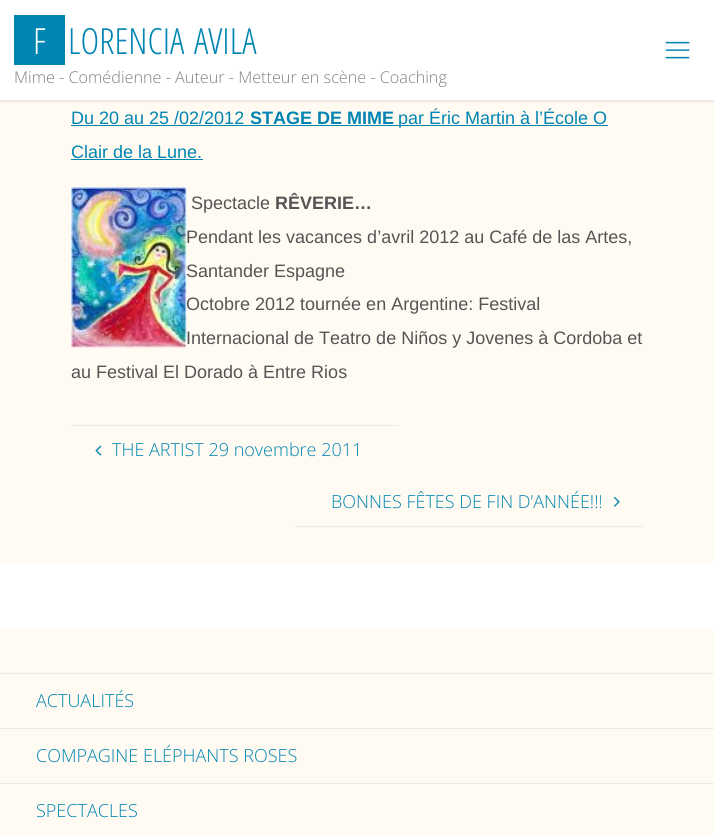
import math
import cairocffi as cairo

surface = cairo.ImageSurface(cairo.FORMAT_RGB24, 714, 836)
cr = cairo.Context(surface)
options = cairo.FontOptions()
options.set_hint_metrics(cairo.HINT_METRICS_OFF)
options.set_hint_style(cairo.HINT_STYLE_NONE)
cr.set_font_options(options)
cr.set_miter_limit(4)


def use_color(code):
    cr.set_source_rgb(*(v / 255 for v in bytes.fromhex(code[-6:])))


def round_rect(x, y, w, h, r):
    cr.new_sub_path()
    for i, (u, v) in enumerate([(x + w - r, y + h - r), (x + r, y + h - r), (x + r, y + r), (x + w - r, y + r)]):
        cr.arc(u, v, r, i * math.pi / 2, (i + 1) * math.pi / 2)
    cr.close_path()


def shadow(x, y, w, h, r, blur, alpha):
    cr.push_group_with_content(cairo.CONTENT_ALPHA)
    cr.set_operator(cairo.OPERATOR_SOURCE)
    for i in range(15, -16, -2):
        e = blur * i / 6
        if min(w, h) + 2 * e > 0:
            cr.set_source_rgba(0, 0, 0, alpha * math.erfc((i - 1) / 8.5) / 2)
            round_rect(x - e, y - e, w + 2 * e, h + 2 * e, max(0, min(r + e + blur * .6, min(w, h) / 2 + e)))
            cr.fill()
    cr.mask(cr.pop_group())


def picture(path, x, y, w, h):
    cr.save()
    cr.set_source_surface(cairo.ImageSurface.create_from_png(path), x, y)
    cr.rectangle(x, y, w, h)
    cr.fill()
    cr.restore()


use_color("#ffffff")
cr.paint()
use_color("#fffaf2")
cr.rectangle(0, 100, 714, 464)
cr.fill()
use_color("#000000")
shadow(0, 0, 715, 100, 0, 2, 0.2)
use_color("#ffffff")
cr.rectangle(0, 0, 714, 100)
cr.fill()
use_color("#0085b2")
cr.rectangle(14, 15, 51, 50)
cr.fill()
cr.select_font_face("Open Sans Condensed Light")
cr.set_font_size(36)
use_color("#ffffff")
cr.move_to(33, 54)
cr.show_text("F")
use_color("#0085b2")
cr.move_to(68, 54)
cr.show_text("LORENCIA")
cr.move_to(194, 54)
cr.show_text("AVILA")
cr.select_font_face("Open Sans Light")
cr.set_font_size(16.2)
use_color("#808080")
cr.move_to(14, 83)
cr.show_text("Mime - Comédienne - Auteur - Metteur en scène - Coaching")
picture("img1.png", 665, 41, 25, 18)
cr.select_font_face("Liberation Sans")
cr.set_font_size(18)
use_color("#0085b2")
cr.move_to(71, 124)
cr.show_text("Du 20 au 25 /02/2012")
cr.select_font_face("Liberation Sans", cairo.FONT_SLANT_NORMAL, cairo.FONT_WEIGHT_BOLD)
cr.move_to(250, 124)
cr.show_text("STAGE DE MIME")
cr.rectangle(71, 125, 537, 1)
cr.fill()
cr.select_font_face("Liberation Sans")
cr.move_to(398, 124)
cr.show_text("par Éric Martin à l’École O")
cr.move_to(71, 158)
cr.show_text("Clair de la Lune.")
cr.rectangle(71, 159, 132, 1)
cr.fill()
picture("img2.png", 71, 187, 116, 161)
use_color("#555555")
cr.move_to(191, 209)
cr.show_text("Spectacle")
cr.select_font_face("Liberation Sans", cairo.FONT_SLANT_NORMAL, cairo.FONT_WEIGHT_BOLD)
cr.move_to(275, 209)
cr.show_text("RÊVERIE…")
cr.select_font_face("Liberation Sans")
cr.move_to(186, 243)
cr.show_text("Pendant les vacances d’avril 2012 au Café de las Artes,")
cr.move_to(186, 277)
cr.show_text("Santander Espagne")
cr.move_to(186, 310)
cr.show_text("Octobre 2012 tournée en Argentine: Festival")
cr.move_to(186, 344)
cr.show_text("Internacional de Teatro de Niños y Jovenes à Cordoba et")
cr.move_to(71, 378)
cr.show_text("au Festival El Dorado à Entre Rios")
use_color("#eee9e1")
cr.rectangle(71, 425, 328, 1)
cr.fill()
picture("img3.png", 95, 445, 7, 11)
cr.select_font_face("Open Sans Light")
use_color("#0085b2")
cr.move_to(112, 456)
cr.show_text("THE ARTIST 29 novembre 2011")
cr.move_to(331, 508)
cr.show_text("BONNES FÊTES DE FIN D’ANNÉE!!!")
picture("img4.png", 613, 496, 7, 11)
use_color("#eee9e1")
cr.rectangle(295, 526, 349, 1)
cr.fill()
use_color("#fffaf2")
cr.rectangle(0, 628, 714, 208)
cr.fill()
use_color("#eee9e1")
cr.rectangle(0, 673, 714, 1)
cr.fill()
use_color("#0085b2")
cr.move_to(36, 707)
cr.show_text("ACTUALITÉS")
use_color("#eee9e1")
cr.rectangle(0, 728, 714, 1)
cr.fill()
use_color("#0085b2")
cr.move_to(36, 762)
cr.show_text("COMPAGINE ELÉPHANTS ROSES")
use_color("#eee9e1")
cr.rectangle(0, 783, 714, 1)
cr.fill()
use_color("#0085b2")
cr.move_to(36, 817)
cr.show_text("SPECTACLES")
surface.write_to_png("result.png")
